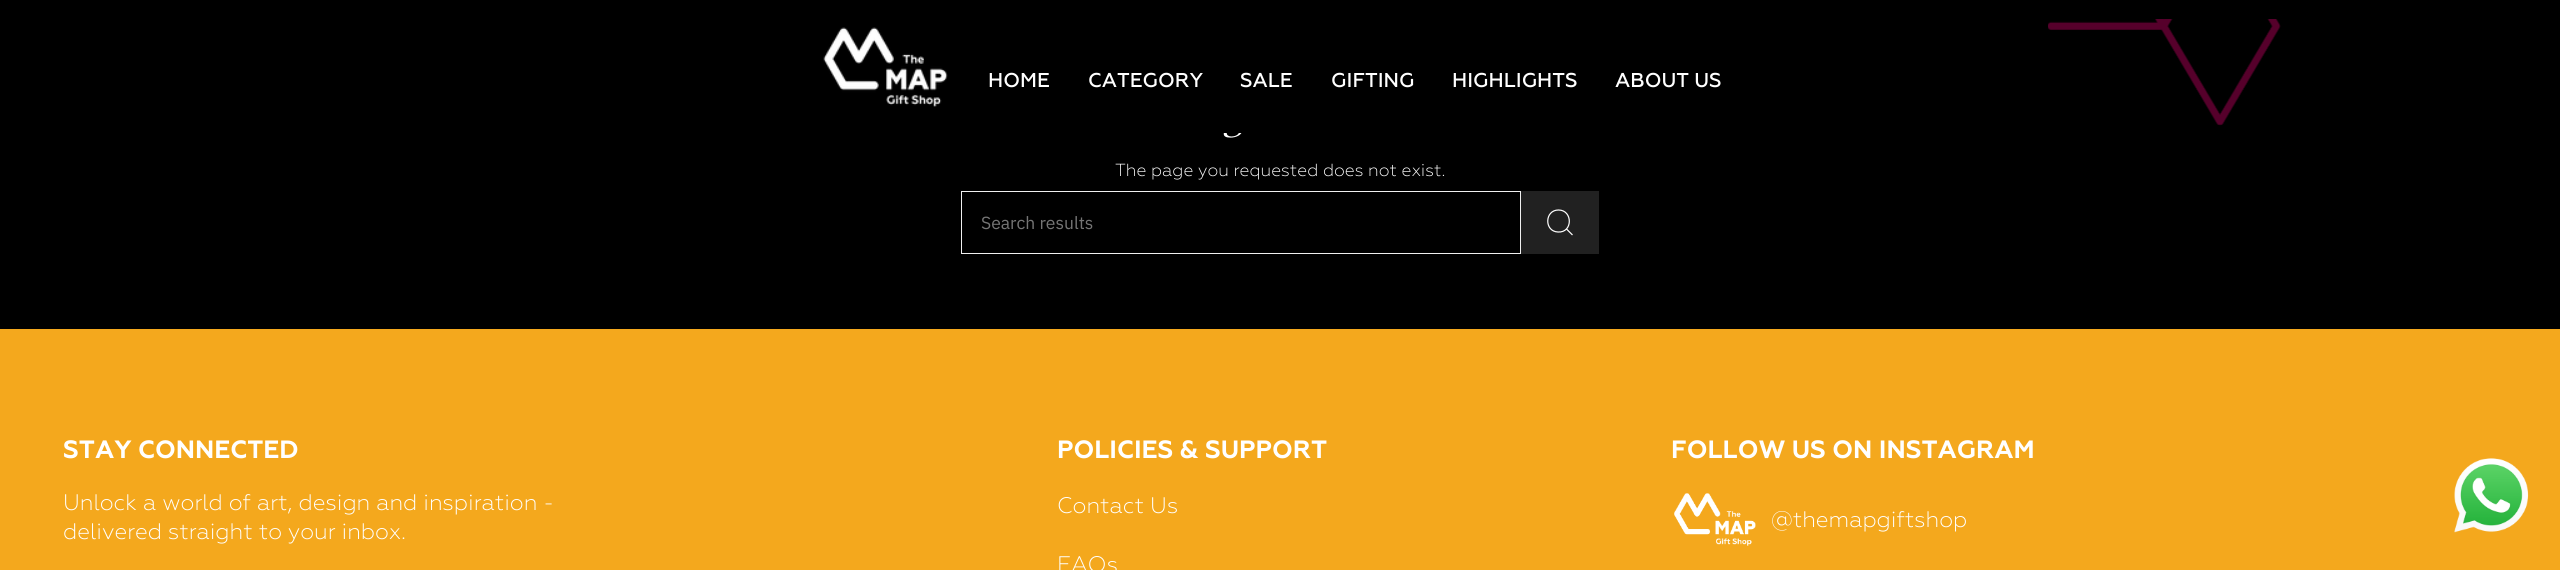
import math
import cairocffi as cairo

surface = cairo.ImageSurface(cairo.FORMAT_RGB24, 2560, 570)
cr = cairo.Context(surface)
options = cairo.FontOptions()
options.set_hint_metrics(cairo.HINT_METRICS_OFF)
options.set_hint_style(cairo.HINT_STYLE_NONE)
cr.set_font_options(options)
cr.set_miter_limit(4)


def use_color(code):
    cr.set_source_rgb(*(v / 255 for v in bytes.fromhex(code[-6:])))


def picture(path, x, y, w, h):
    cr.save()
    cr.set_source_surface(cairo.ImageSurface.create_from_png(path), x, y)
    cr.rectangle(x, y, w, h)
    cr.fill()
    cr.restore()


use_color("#000000")
cr.paint()
picture("img1.png", 823, 27, 125, 80)
cr.select_font_face("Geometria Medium")
cr.set_font_size(20)
use_color("#ffffff")
cr.move_to(988, 87)
cr.show_text("HOME")
cr.move_to(1088, 87)
cr.show_text("CATEGORY")
cr.move_to(1240, 87)
cr.show_text("SALE")
cr.move_to(1331, 87)
cr.show_text("GIFTING")
cr.move_to(1452, 87)
cr.show_text("HIGHLIGHTS")
cr.move_to(1615, 87)
cr.show_text("ABOUT US")
picture("img2.png", 2048, 19, 233, 107)
picture("img3.png", 1223, 133, 19, 5)
cr.select_font_face("Geometria Light")
cr.set_font_size(17.5)
cr.move_to(1115, 176)
cr.show_text("The page you requested does not exist.")
cr.rectangle(961.5, 191.5, 559, 62)
use_color("#f0f0f0")
cr.set_line_width(1)
cr.stroke()
cr.select_font_face("IBM Plex Sans")
use_color("#757575")
cr.move_to(981, 229)
cr.show_text("Search results")
use_color("#212121")
cr.rectangle(1521, 191, 78, 63)
cr.fill()
cr.new_path()
cr.move_to(1558.5, 210)
cr.curve_to(1573, 210, 1573, 233, 1558, 232)
cr.curve_to(1544, 231.5, 1544.5, 210, 1558.5, 210)
cr.close_path()
cr.move_to(1566.5, 229)
cr.line_to(1572.5, 235)
use_color("#ffffff")
cr.set_line_width(1.2)
cr.stroke()
use_color("#f4a81d")
cr.rectangle(0, 329, 2560, 241)
cr.fill()
cr.select_font_face("Geometria", cairo.FONT_SLANT_NORMAL, cairo.FONT_WEIGHT_BOLD)
cr.set_font_size(25)
use_color("#ffffff")
cr.move_to(63, 458)
cr.show_text("STAY CONNECTED")
cr.select_font_face("Geometria Light")
cr.set_font_size(22.5)
cr.move_to(63, 510)
cr.show_text("Unlock a world of art, design and inspiration -")
cr.move_to(63, 539)
cr.show_text("delivered straight to your inbox.")
cr.select_font_face("Geometria", cairo.FONT_SLANT_NORMAL, cairo.FONT_WEIGHT_BOLD)
cr.set_font_size(25)
cr.move_to(1057, 458)
cr.show_text("POLICIES & SUPPORT")
cr.select_font_face("Geometria Light")
cr.set_font_size(22.5)
cr.move_to(1057, 513)
cr.show_text("Contact Us")
cr.move_to(1057, 572)
cr.show_text("FAQs")
cr.select_font_face("Geometria", cairo.FONT_SLANT_NORMAL, cairo.FONT_WEIGHT_BOLD)
cr.set_font_size(25)
cr.move_to(1671, 458)
cr.show_text("FOLLOW US ON INSTAGRAM")
picture("img4.png", 1674, 493, 82, 53)
cr.select_font_face("Geometria Light")
cr.set_font_size(22.5)
cr.move_to(1771, 527)
cr.show_text("@themapgiftshop")
picture("img5.png", 2454, 458, 75, 75)
surface.write_to_png("result.png")
